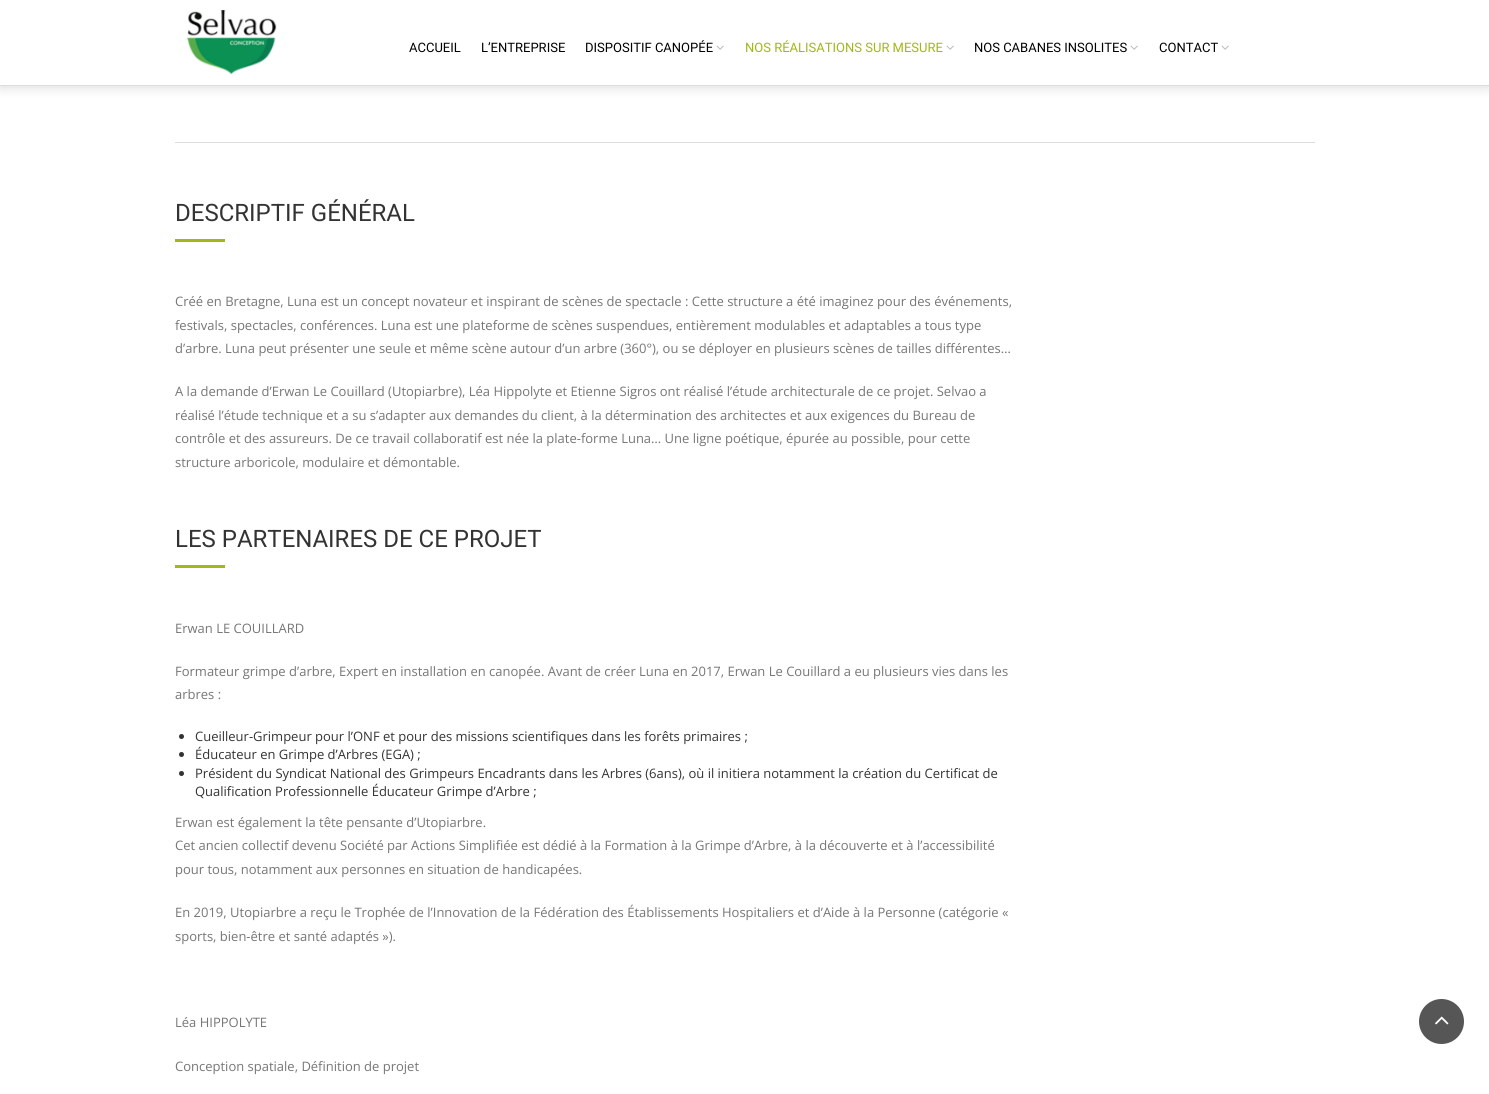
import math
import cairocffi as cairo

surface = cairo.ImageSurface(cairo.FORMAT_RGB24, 1489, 1094)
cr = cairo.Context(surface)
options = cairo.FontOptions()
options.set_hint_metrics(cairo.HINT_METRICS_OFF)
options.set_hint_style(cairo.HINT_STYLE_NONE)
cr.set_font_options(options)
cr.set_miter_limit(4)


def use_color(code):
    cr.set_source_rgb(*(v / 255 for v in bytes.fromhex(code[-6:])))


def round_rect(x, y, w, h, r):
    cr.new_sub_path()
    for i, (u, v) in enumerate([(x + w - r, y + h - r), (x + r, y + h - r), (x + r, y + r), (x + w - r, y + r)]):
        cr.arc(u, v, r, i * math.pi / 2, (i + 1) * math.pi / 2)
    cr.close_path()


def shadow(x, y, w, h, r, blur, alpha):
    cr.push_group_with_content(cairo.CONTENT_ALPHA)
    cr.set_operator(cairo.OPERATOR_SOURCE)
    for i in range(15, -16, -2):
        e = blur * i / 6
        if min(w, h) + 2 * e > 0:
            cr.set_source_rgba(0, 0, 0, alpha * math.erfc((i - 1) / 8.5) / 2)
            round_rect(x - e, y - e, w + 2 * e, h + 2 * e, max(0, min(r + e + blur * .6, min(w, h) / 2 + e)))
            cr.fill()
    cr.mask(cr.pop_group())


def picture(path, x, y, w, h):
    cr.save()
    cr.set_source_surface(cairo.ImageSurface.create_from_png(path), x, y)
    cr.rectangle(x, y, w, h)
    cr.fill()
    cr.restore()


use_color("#ffffff")
cr.paint()
use_color("#000000")
shadow(0, 1, 1489, 86, 0, 6, 0.15)
use_color("#ffffff")
cr.rectangle(0, 0, 1489, 85)
cr.fill()
use_color("#dddddd")
cr.rectangle(0, 85, 1489, 1)
cr.fill()
picture("img1.png", 187, 10, 90, 65)
cr.select_font_face("Roboto")
cr.set_font_size(13)
use_color("#000000")
cr.move_to(409, 52)
cr.show_text("ACCUEIL")
cr.move_to(481, 52)
cr.show_text("L’ENTREPRISE")
cr.move_to(585, 52)
cr.show_text("DISPOSITIF CANOPÉE")
picture("img2.png", 716, 45, 8, 5)
use_color("#a2b816")
cr.move_to(745, 52)
cr.show_text("NOS RÉALISATIONS SUR MESURE")
picture("img2.png", 946, 45, 8, 5)
use_color("#000000")
cr.move_to(974, 52)
cr.show_text("NOS CABANES INSOLITES")
picture("img2.png", 1130, 45, 8, 5)
cr.move_to(1159, 52)
cr.show_text("CONTACT")
picture("img2.png", 1221, 45, 8, 5)
use_color("#dddddd")
cr.rectangle(175, 142, 1140, 1)
cr.fill()
cr.set_font_size(24)
use_color("#333333")
cr.move_to(175, 221)
cr.show_text("DESCRIPTIF GÉNÉRAL")
use_color("#a2b816")
cr.rectangle(175, 239, 50, 3)
cr.fill()
cr.select_font_face("Open Sans")
cr.set_font_size(13)
use_color("#767676")
cr.move_to(175, 306)
cr.show_text("Créé en Bretagne, Luna est un concept novateur et inspirant de scènes de spectacle : Cette structure a été imaginez pour des événements,")
cr.move_to(175, 330)
cr.show_text("festivals, spectacles, conférences. Luna est une plateforme de scènes suspendues, entièrement modulables et adaptables a tous type")
cr.move_to(175, 353)
cr.show_text("d’arbre. Luna peut présenter une seule et même scène autour d’un arbre (360°), ou se déployer en plusieurs scènes de tailles différentes…")
cr.move_to(175, 396)
cr.show_text("A la demande d’Erwan Le Couillard (Utopiarbre), Léa Hippolyte et Etienne Sigros ont réalisé l’étude architecturale de ce projet. Selvao a")
cr.move_to(175, 420)
cr.show_text("réalisé l’étude technique et a su s’adapter aux demandes du client, à la détermination des architectes et aux exigences du Bureau de")
cr.move_to(175, 443)
cr.show_text("contrôle et des assureurs. De ce travail collaboratif est née la plate-forme Luna… Une ligne poétique, épurée au possible, pour cette")
cr.move_to(175, 467)
cr.show_text("structure arboricole, modulaire et démontable.")
cr.select_font_face("Roboto")
cr.set_font_size(24)
use_color("#333333")
cr.move_to(175, 547)
cr.show_text("LES PARTENAIRES DE CE PROJET")
use_color("#a2b816")
cr.rectangle(175, 565, 50, 3)
cr.fill()
cr.select_font_face("Open Sans")
cr.set_font_size(13)
use_color("#767676")
cr.move_to(175, 633)
cr.show_text("Erwan LE COUILLARD")
cr.move_to(175, 676)
cr.show_text("Formateur grimpe d’arbre, Expert en installation en canopée. Avant de créer Luna en 2017, Erwan Le Couillard a eu plusieurs vies dans les")
cr.move_to(175, 699)
cr.show_text("arbres :")
use_color("#333333")
cr.new_path()
cr.arc(181.5, 736.5, 2.5, 0, 2 * math.pi)
cr.fill()
cr.move_to(195, 741)
cr.show_text("Cueilleur-Grimpeur pour l’ONF et pour des missions scientifiques dans les forêts primaires ;")
cr.new_path()
cr.arc(181.5, 754.5, 2.5, 0, 2 * math.pi)
cr.fill()
cr.move_to(195, 759)
cr.show_text("Éducateur en Grimpe d’Arbres (EGA) ;")
cr.new_path()
cr.arc(181.5, 773.5, 2.5, 0, 2 * math.pi)
cr.fill()
cr.move_to(195, 778)
cr.show_text("Président du Syndicat National des Grimpeurs Encadrants dans les Arbres (6ans), où il initiera notamment la création du Certificat de")
cr.move_to(195, 796)
cr.show_text("Qualification Professionnelle Éducateur Grimpe d’Arbre ;")
use_color("#767676")
cr.move_to(175, 827)
cr.show_text("Erwan est également la tête pensante d’Utopiarbre.")
cr.move_to(175, 850)
cr.show_text("Cet ancien collectif devenu Société par Actions Simplifiée est dédié à la Formation à la Grimpe d’Arbre, à la découverte et à l’accessibilité")
cr.move_to(175, 874)
cr.show_text("pour tous, notamment aux personnes en situation de handicapées.")
cr.move_to(175, 917)
cr.show_text("En 2019, Utopiarbre a reçu le Trophée de l’Innovation de la Fédération des Établissements Hospitaliers et d’Aide à la Personne (catégorie «")
cr.move_to(175, 941)
cr.show_text("sports, bien-être et santé adaptés »).")
cr.move_to(175, 1027)
cr.show_text("Léa HIPPOLYTE")
cr.move_to(175, 1071)
cr.show_text("Conception spatiale, Définition de projet")
use_color("#565656")
cr.new_path()
cr.arc(1441.5, 1021.5, 21.5, 0, 2 * math.pi)
cr.fill_preserve()
cr.stroke()
picture("img3.png", 1435, 1016, 14, 9)
surface.write_to_png("result.png")
